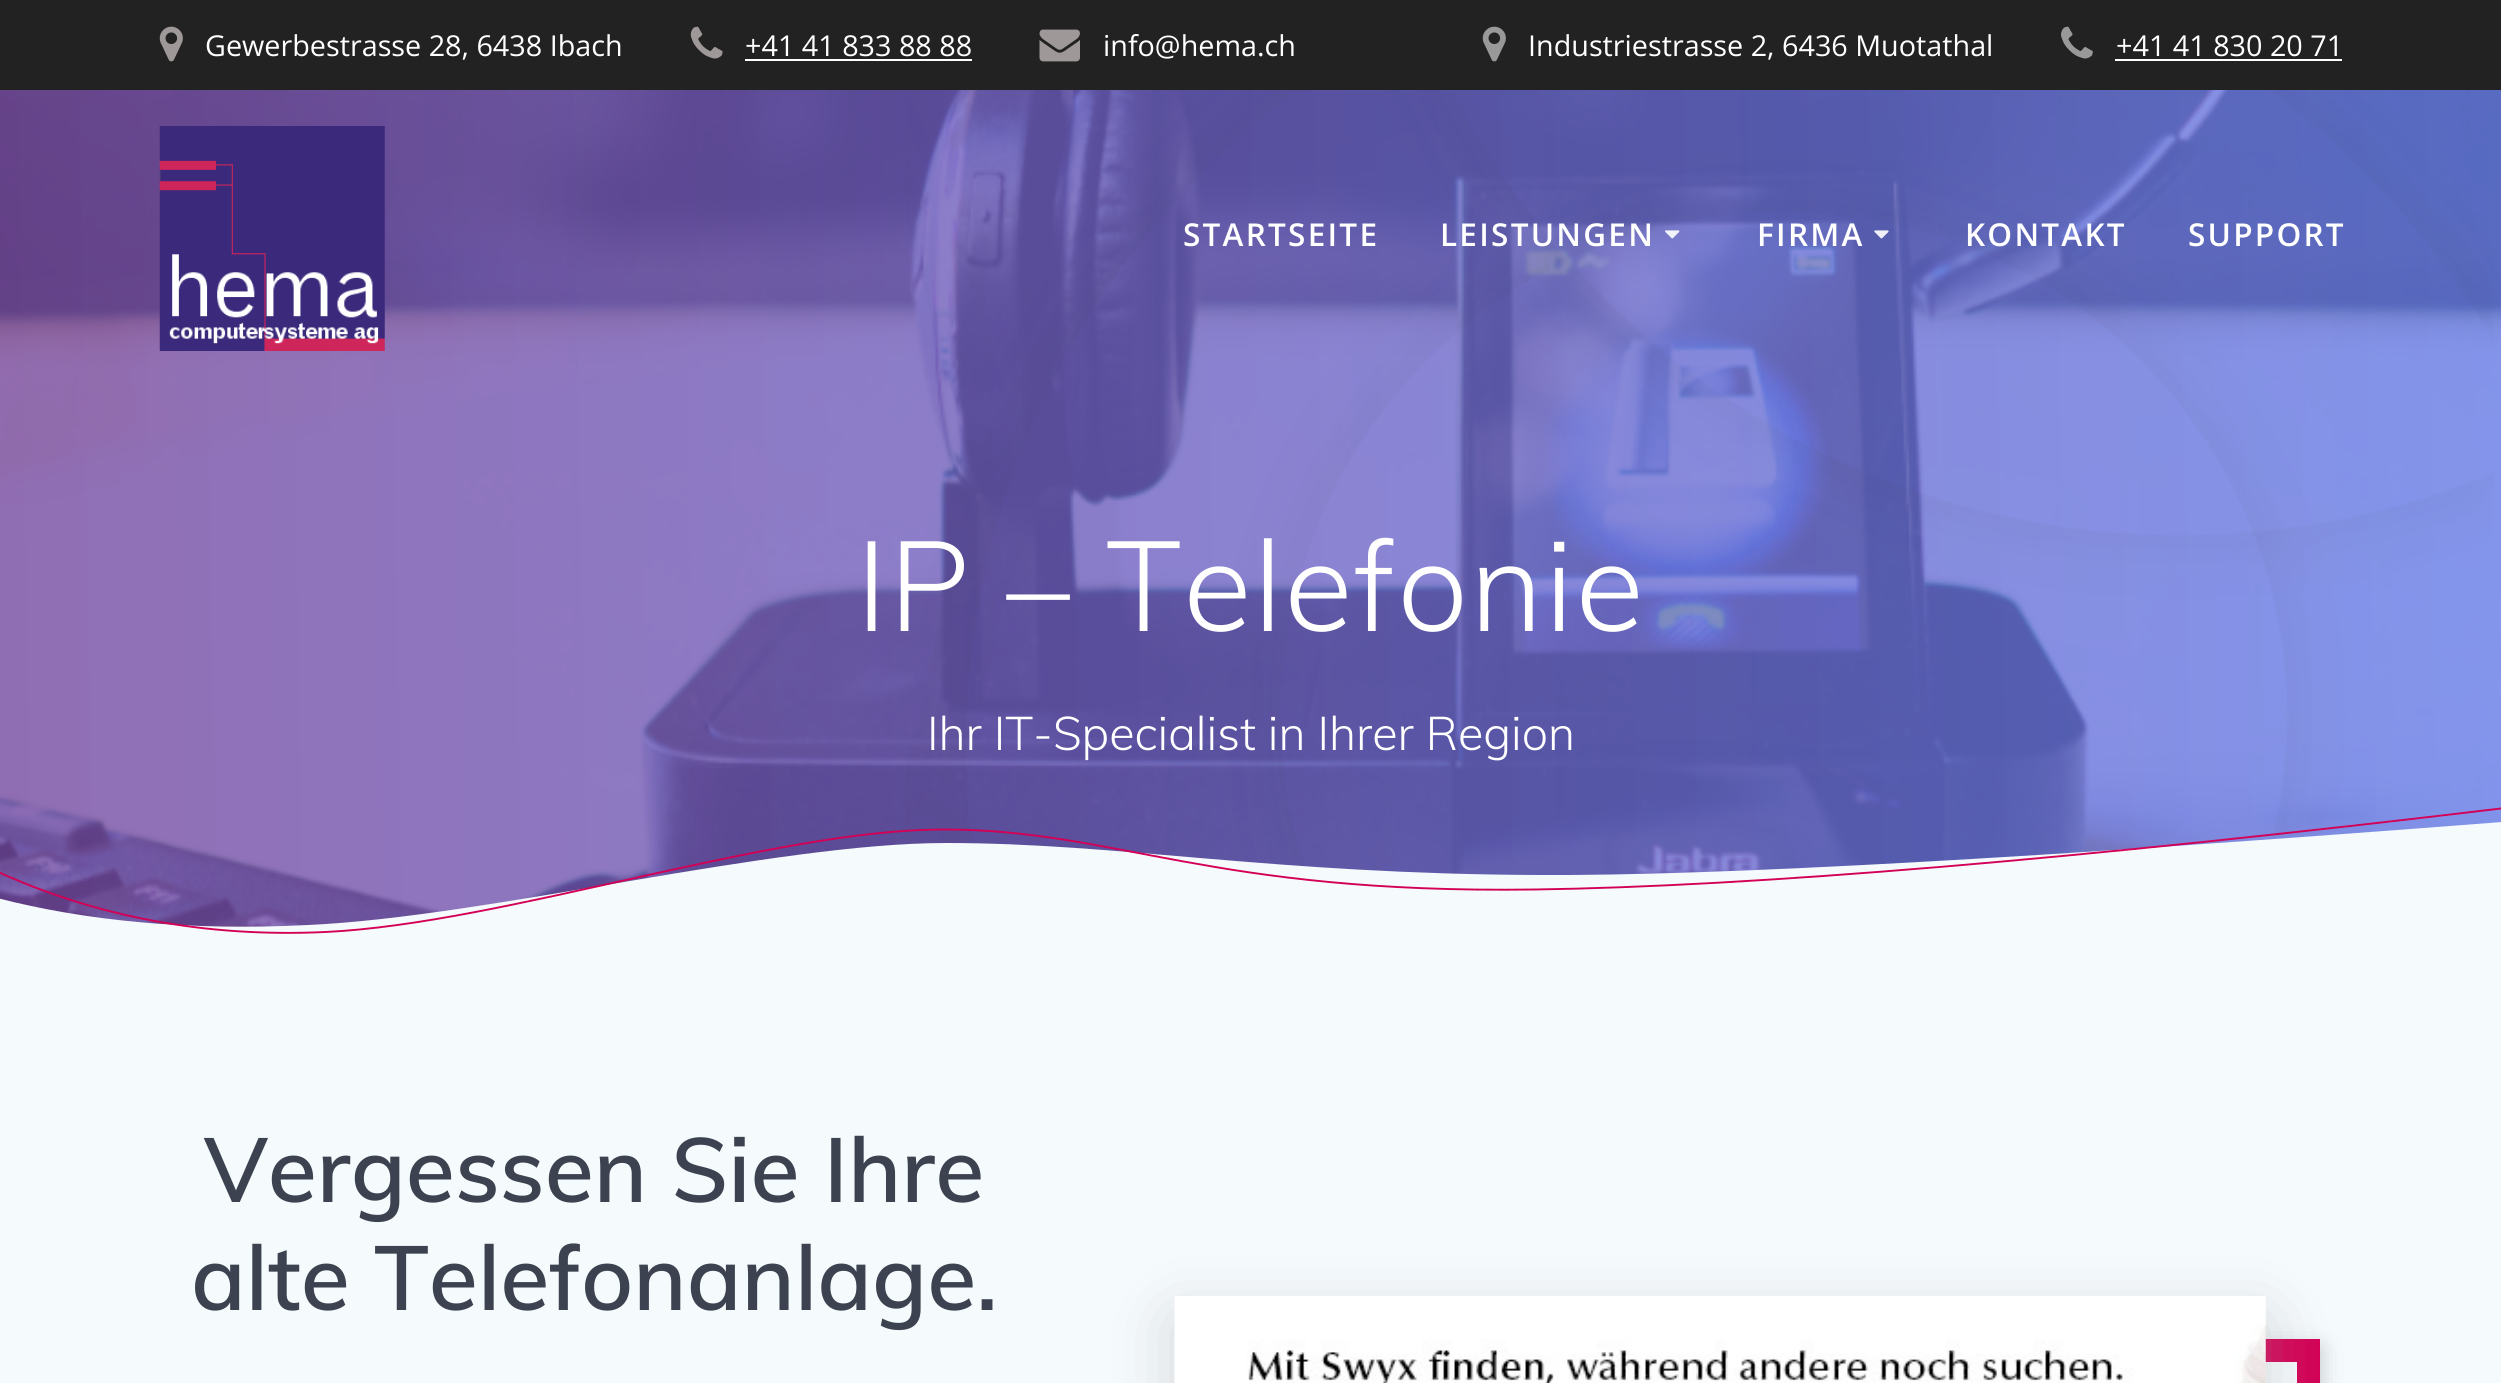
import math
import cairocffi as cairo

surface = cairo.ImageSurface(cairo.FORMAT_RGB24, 2501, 1383)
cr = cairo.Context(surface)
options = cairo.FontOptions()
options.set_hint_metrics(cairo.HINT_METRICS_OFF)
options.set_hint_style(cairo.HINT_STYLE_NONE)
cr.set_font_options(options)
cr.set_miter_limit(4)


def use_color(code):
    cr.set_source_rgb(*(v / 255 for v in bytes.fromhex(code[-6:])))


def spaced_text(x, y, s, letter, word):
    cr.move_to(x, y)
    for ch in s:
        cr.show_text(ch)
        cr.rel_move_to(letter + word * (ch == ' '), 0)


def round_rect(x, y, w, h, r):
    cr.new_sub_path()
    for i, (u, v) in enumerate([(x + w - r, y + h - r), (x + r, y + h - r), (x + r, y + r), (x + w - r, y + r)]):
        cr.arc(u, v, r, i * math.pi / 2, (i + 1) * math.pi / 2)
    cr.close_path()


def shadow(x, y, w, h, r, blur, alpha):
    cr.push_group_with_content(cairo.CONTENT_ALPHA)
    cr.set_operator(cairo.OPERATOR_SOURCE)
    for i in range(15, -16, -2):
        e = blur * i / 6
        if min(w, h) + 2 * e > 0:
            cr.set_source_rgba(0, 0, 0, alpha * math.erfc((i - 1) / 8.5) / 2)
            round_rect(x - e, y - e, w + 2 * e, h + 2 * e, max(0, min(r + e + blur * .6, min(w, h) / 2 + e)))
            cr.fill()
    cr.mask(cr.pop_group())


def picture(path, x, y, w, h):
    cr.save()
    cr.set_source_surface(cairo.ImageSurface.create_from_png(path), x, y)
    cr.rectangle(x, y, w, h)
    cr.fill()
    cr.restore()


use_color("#ffffff")
cr.paint()
use_color("#222222")
cr.rectangle(0, 0, 2501, 90)
cr.fill()
picture("img1.png", 159, 26, 24, 36)
cr.select_font_face("Open Sans")
cr.set_font_size(28.75)
use_color("#ffffff")
cr.move_to(205, 56)
cr.show_text("Gewerbestrasse 28, 6438 Ibach")
picture("img2.png", 690, 26, 33, 33)
cr.move_to(745, 56)
cr.show_text("+41 41 833 88 88")
cr.rectangle(745, 59, 227, 2)
cr.fill()
picture("img3.png", 1039, 29, 41, 33)
cr.move_to(1103, 56)
cr.show_text("info@hema.ch")
picture("img4.png", 1482, 26, 24, 36)
cr.move_to(1528, 56)
cr.show_text("Industriestrasse 2, 6436 Muotathal")
picture("img5.png", 2061, 26, 32, 33)
cr.move_to(2116, 56)
cr.show_text("+41 41 830 20 71")
cr.rectangle(2115, 59, 227, 2)
cr.fill()
picture("img9.png", 0, 90, 2501, 837)
gradient = cairo.LinearGradient(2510, 445, -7.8, 489)
gradient.add_color_stop_rgba(0, 0.4, 0.494, 0.918, 0.8)
gradient.add_color_stop_rgba(1, 0.463, 0.294, 0.635, 0.8)
cr.set_source(gradient)
cr.rectangle(0, 90, 2501, 837)
cr.fill()
picture("img6.png", 159, 126, 226, 225)
picture("img10.png", 906, 90, 1588, 777)
cr.select_font_face("Open Sans SemiBold")
cr.set_font_size(31.5)
use_color("#ffffff")
spaced_text(1183, 246, "STARTSEITE", 2.25, 0)
spaced_text(1440, 246, "LEISTUNGEN", 2.25, 0)
picture("img7.png", 1665, 230, 15, 9)
spaced_text(1757, 246, "FIRMA", 2.25, 0)
picture("img8.png", 1874, 230, 15, 9)
spaced_text(1965, 246, "KONTAKT", 2.25, 0)
spaced_text(2188, 246, "SUPPORT", 2.25, 0)
cr.select_font_face("Muli Light")
cr.set_font_size(126)
spaced_text(856, 631, "IP – Telefonie", 2, 0)
cr.set_font_size(46.75)
cr.move_to(927, 750)
cr.show_text("Ihr IT-Specialist in Ihrer Region")
use_color("#f5fafd")
cr.new_path()
cr.move_to(-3, 898)
cr.line_to(-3, 939)
cr.line_to(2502, 939)
cr.line_to(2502, 822)
cr.curve_to(2037, 858, 1716, 876, 1539, 875)
cr.curve_to(1272, 874, 1119, 843, 946, 843)
cr.curve_to(774, 843, 487, 917, 308, 925)
cr.curve_to(190, 931, 86, 921, -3, 898)
cr.close_path()
cr.fill()
cr.new_path()
cr.move_to(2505, 808)
cr.curve_to(2075, 859.5, 1751.5, 886.5, 1534.5, 889.5)
cr.curve_to(1209, 894, 1116.5, 829.5, 943.5, 829.5)
cr.curve_to(771, 829.5, 504.5, 923.5, 325.5, 932)
cr.curve_to(206, 937.5, 96, 917, -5, 870.5)
use_color("#d30055")
cr.set_line_width(1.9)
cr.stroke()
use_color("#f5fafd")
cr.rectangle(0, 939, 2501, 444)
cr.fill()
cr.select_font_face("Muli SemiBold")
cr.set_font_size(90)
use_color("#3c424f")
cr.move_to(204, 1202)
cr.show_text("Vergessen Sie Ihre")
cr.move_to(191, 1310)
cr.show_text("alte Telefonanlage.")
cr.save()
cr.set_fill_rule(cairo.FILL_RULE_EVEN_ODD)
cr.new_path()
cr.move_to(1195, 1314)
cr.line_to(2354, 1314)
cr.line_to(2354, 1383)
cr.line_to(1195, 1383)
cr.close_path()
cr.move_to(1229, 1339)
cr.line_to(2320, 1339)
cr.line_to(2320, 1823)
cr.line_to(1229, 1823)
cr.close_path()
cr.clip()
use_color("#4a4a4a")
shadow(1229, 1348, 1091, 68, 0, 11, 0.3)
cr.restore()
cr.rectangle(1240.5, 1350.5, 1068, 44)
use_color("#d30055")
cr.set_line_width(23)
cr.stroke()
use_color("#000000")
shadow(1175, 1319, 1091, 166, 0, 34, 0.08)
use_color("#bdbdbd")
shadow(1175, 1319, 1091, 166, 0, 34, 0.3)
picture("img11.png", 1174, 1296, 1092, 87)
surface.write_to_png("result.png")
